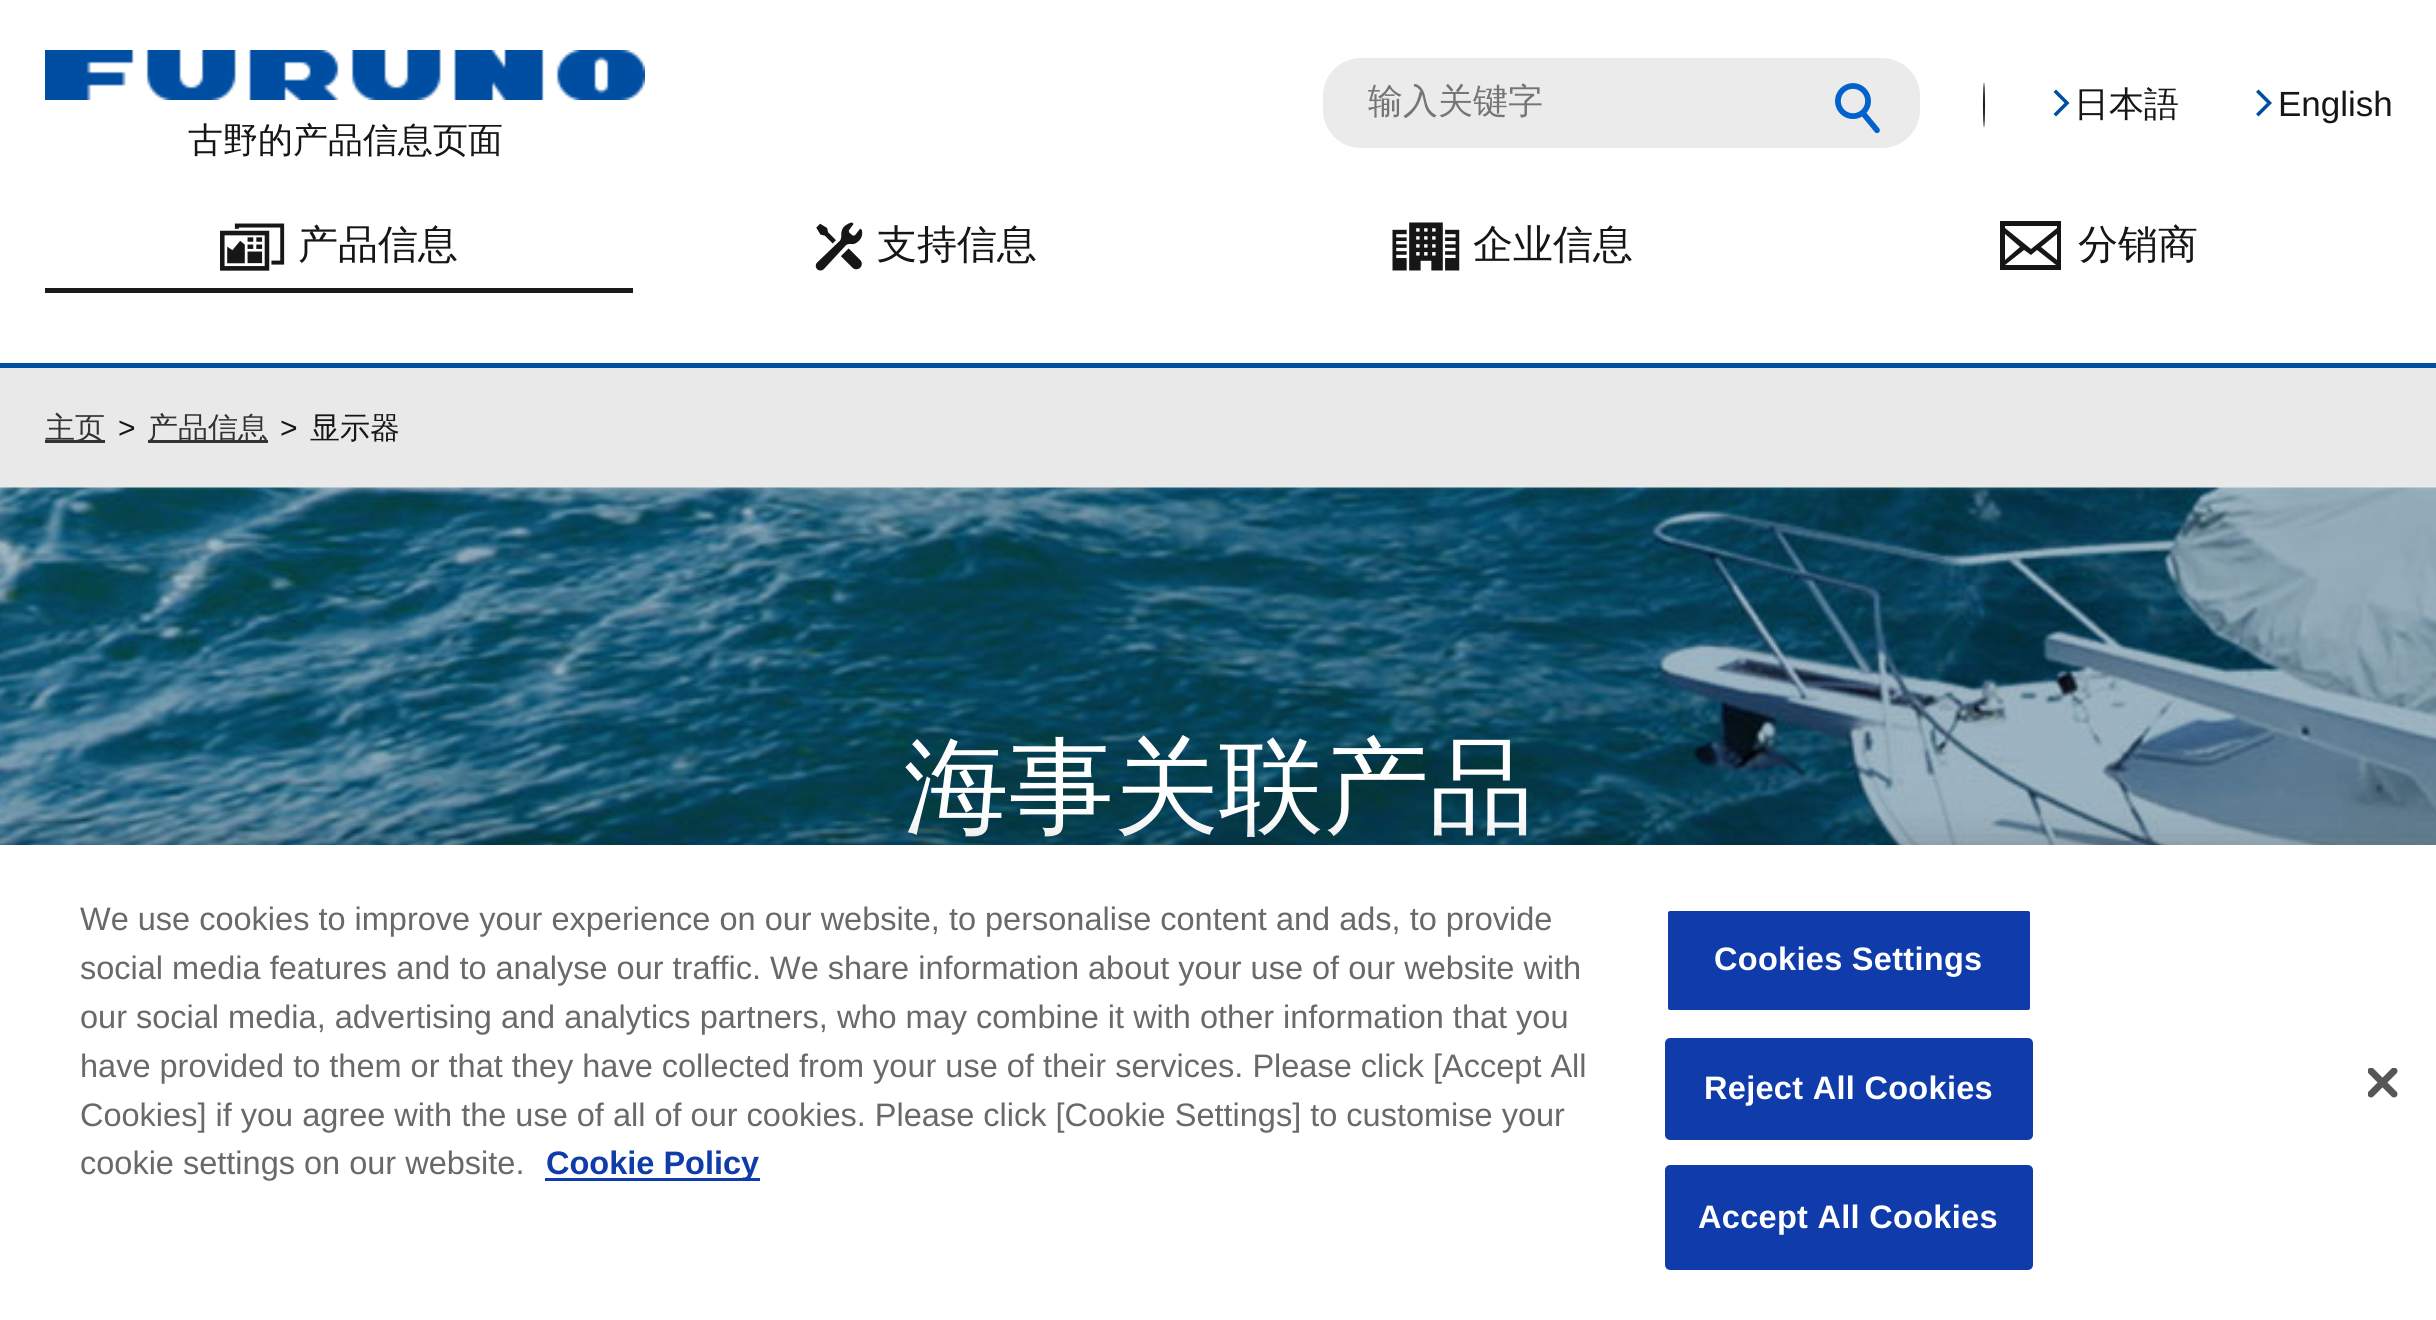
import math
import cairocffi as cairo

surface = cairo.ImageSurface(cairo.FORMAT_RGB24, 2436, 1320)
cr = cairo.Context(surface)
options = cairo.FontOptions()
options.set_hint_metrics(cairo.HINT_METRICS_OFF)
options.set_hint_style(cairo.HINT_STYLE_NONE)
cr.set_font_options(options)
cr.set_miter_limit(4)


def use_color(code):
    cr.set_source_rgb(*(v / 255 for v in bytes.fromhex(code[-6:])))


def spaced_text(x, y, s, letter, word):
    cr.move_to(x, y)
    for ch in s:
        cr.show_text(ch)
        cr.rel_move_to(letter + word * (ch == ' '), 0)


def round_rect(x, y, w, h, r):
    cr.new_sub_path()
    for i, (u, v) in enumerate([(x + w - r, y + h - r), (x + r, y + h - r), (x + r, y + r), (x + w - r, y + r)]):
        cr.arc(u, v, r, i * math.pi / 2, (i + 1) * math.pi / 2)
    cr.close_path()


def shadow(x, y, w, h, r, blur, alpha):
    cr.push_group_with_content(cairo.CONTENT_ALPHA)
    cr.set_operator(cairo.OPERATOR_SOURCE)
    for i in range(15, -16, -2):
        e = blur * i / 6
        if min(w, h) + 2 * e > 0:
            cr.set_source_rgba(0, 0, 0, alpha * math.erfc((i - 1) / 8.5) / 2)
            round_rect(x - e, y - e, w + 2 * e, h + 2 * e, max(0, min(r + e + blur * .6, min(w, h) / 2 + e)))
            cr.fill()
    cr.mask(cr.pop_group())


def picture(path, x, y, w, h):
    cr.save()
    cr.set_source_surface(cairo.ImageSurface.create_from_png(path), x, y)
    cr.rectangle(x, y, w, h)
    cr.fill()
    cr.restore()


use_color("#ffffff")
cr.paint()
use_color("#ebebeb")
round_rect(1323, 58, 597, 90, 38)
cr.fill()
cr.select_font_face("WenQuanYi Zen Hei Medium")
cr.set_font_size(35)
use_color("#757575")
cr.move_to(1368, 113)
cr.show_text("输入关键字")
picture("img1.png", 1835, 83, 45, 51)
use_color("#1a1a1a")
cr.new_path()
cr.move_to(1984, 82.5)
cr.curve_to(1984.5, 82.5, 1985, 92.5, 1985, 105)
cr.curve_to(1985, 117.5, 1984.5, 127.5, 1984, 127.5)
cr.curve_to(1983.5, 127.5, 1983, 117.5, 1983, 105)
cr.curve_to(1983, 92.5, 1983.5, 82.5, 1984, 82.5)
cr.close_path()
cr.fill()
use_color("#161616")
cr.move_to(2074, 116)
cr.show_text("日本語")
use_color("#004ea2")
cr.new_path()
cr.move_to(2053.5, 92)
cr.line_to(2064.5, 103)
cr.line_to(2053.5, 114)
cr.line_to(2056, 116.5)
cr.line_to(2069.5, 103)
cr.line_to(2056, 89.5)
cr.close_path()
cr.fill()
cr.select_font_face("Liberation Sans")
use_color("#161616")
cr.move_to(2278, 116)
cr.show_text("English")
use_color("#004ea2")
cr.new_path()
cr.move_to(2256, 92)
cr.line_to(2267, 103)
cr.line_to(2256, 114)
cr.line_to(2258.5, 116.5)
cr.line_to(2272, 103)
cr.line_to(2258.5, 89.5)
cr.close_path()
cr.fill()
picture("img2.png", 45, 50, 600, 50)
cr.select_font_face("WenQuanYi Zen Hei Medium")
use_color("#161616")
cr.move_to(188, 152)
cr.show_text("古野的产品信息页面")
use_color("#1a1a1a")
cr.rectangle(45, 288, 588, 5)
cr.fill()
picture("img3.png", 220, 223, 65, 48)
cr.set_font_size(40)
use_color("#161616")
cr.move_to(298, 258)
cr.show_text("产品信息")
picture("img4.png", 815, 222, 48, 49)
cr.move_to(877, 258)
cr.show_text("支持信息")
picture("img5.png", 1392, 222, 68, 49)
cr.move_to(1473, 258)
cr.show_text("企业信息")
cr.new_path()
cr.move_to(2000, 221)
cr.line_to(2000, 270)
cr.line_to(2061, 270)
cr.line_to(2061, 221)
cr.close_path()
cr.move_to(2024, 250)
cr.line_to(2031, 255)
cr.line_to(2037, 250)
cr.line_to(2056, 265)
cr.line_to(2005, 265)
cr.close_path()
cr.move_to(2005, 260)
cr.line_to(2005, 234)
cr.line_to(2020, 247)
cr.close_path()
cr.move_to(2041, 247)
cr.line_to(2057, 234)
cr.line_to(2057, 260)
cr.close_path()
cr.move_to(2057, 226)
cr.line_to(2057, 228)
cr.line_to(2031, 249)
cr.line_to(2005, 228)
cr.line_to(2005, 226)
cr.close_path()
cr.fill()
cr.move_to(2078, 258)
cr.show_text("分销商")
use_color("#e9e9e9")
cr.rectangle(0, 368, 2436, 120)
cr.fill()
use_color("#004ea2")
cr.rectangle(0, 363, 2436, 5)
cr.fill()
use_color("#333333")
cr.rectangle(45, 440, 60, 3)
cr.fill()
cr.set_font_size(30)
cr.move_to(45, 438)
cr.show_text("主页")
cr.select_font_face("Liberation Sans")
use_color("#161616")
cr.move_to(118, 438)
cr.show_text(">")
use_color("#333333")
cr.rectangle(148, 440, 120, 3)
cr.fill()
cr.select_font_face("WenQuanYi Zen Hei Medium")
cr.move_to(148, 438)
cr.show_text("产品信息")
cr.select_font_face("Liberation Sans")
use_color("#161616")
cr.move_to(280, 438)
cr.show_text(">")
cr.select_font_face("WenQuanYi Zen Hei Medium")
cr.move_to(310, 438)
cr.show_text("显示器")
picture("img6.png", 0, 487, 2436, 358)
cr.set_font_size(105)
use_color("#ffffff")
cr.move_to(904, 823)
cr.show_text("海事关联产品")
use_color("#000000")
shadow(0, 845, 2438, 475, 0, 22.5, 0.2)
use_color("#ffffff")
cr.rectangle(0, 845, 2436, 475)
cr.fill()
cr.select_font_face("Liberation Sans")
cr.set_font_size(32.5)
use_color("#696969")
cr.move_to(80, 930)
cr.show_text("We use cookies to improve your experience on our website, to personalise content and ads, to provide")
cr.move_to(80, 979)
cr.show_text("social media features and to analyse our traffic. We share information about your use of our website with")
cr.move_to(80, 1028)
cr.show_text("our social media, advertising and analytics partners, who may combine it with other information that you")
cr.move_to(80, 1077)
cr.show_text("have provided to them or that they have collected from your use of their services. Please click [Accept All")
cr.move_to(80, 1126)
cr.show_text("Cookies] if you agree with the use of all of our cookies. Please click [Cookie Settings] to customise your")
cr.move_to(80, 1174)
cr.show_text("cookie settings on our website.")
use_color("#0f3caa")
cr.rectangle(545, 1178, 215, 3)
cr.fill()
cr.select_font_face("Liberation Sans", cairo.FONT_SLANT_NORMAL, cairo.FONT_WEIGHT_BOLD)
cr.move_to(546, 1174)
cr.show_text("Cookie Policy")
round_rect(1666.5, 909.5, 365, 102, 3.5)
cr.fill_preserve()
use_color("#ffffff")
cr.set_line_width(3)
cr.stroke()
spaced_text(1714, 970, "Cookies Settings", 0.3, 0)
use_color("#0f3caa")
round_rect(1666.5, 1039.5, 365, 99, 3.5)
cr.fill_preserve()
cr.stroke()
use_color("#ffffff")
spaced_text(1704, 1099, "Reject All Cookies", 0.3, 0)
use_color("#0f3caa")
round_rect(1666.5, 1166.5, 365, 102, 3.5)
cr.fill_preserve()
cr.stroke()
use_color("#ffffff")
spaced_text(1698, 1228, "Accept All Cookies", 0.3, 0)
picture("img7.png", 2368, 1068, 30, 30)
surface.write_to_png("result.png")
